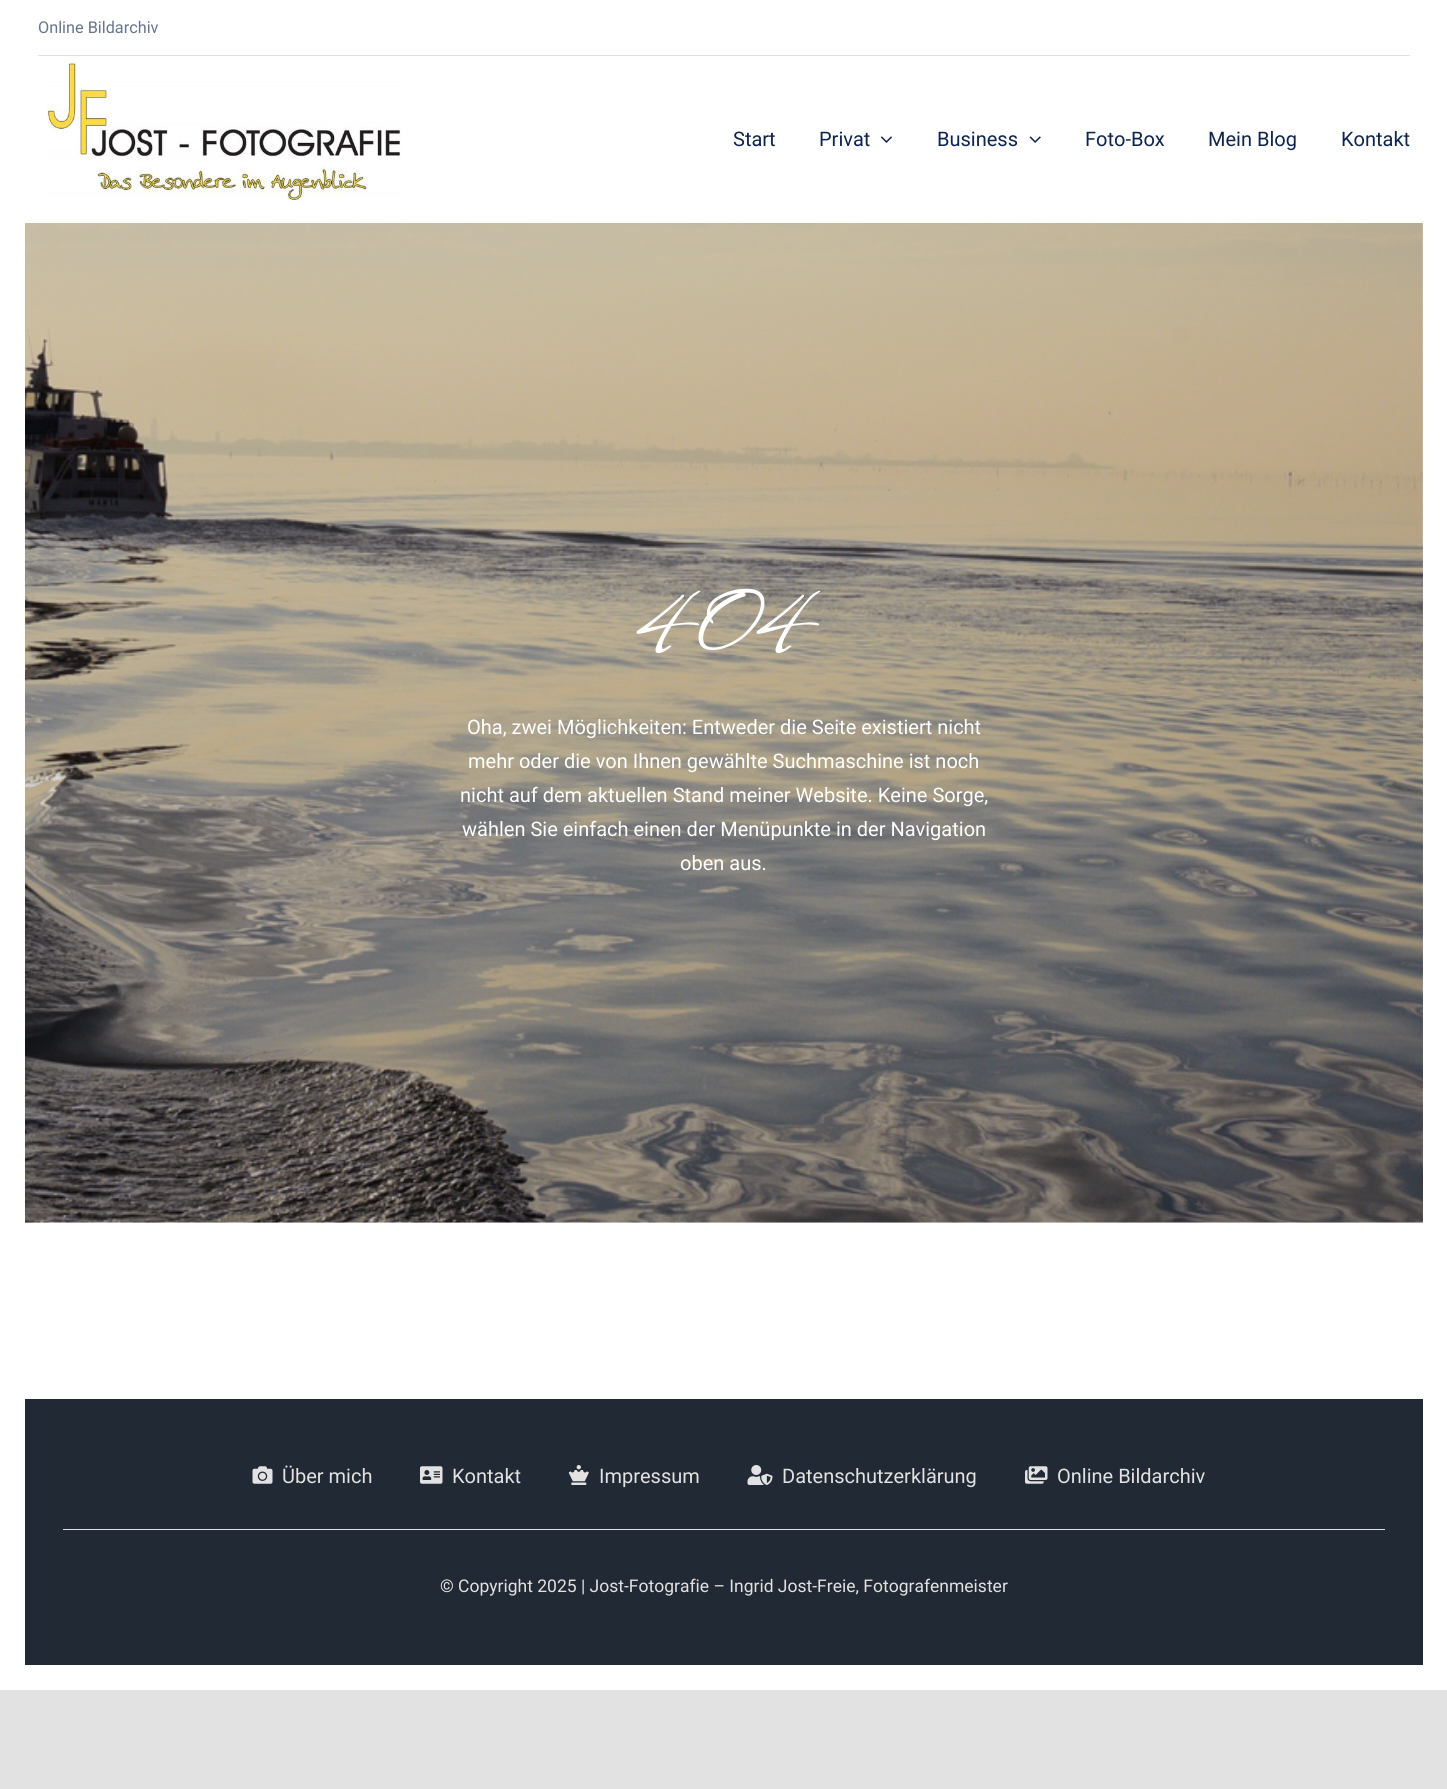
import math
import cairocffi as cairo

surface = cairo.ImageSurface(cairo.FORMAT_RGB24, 1447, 1789)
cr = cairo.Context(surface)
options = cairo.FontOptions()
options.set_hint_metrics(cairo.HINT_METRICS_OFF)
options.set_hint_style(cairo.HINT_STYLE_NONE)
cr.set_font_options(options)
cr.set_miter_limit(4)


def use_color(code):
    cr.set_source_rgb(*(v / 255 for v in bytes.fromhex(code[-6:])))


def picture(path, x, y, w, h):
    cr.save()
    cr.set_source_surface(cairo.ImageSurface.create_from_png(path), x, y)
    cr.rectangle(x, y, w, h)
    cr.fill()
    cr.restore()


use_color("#e2e2e2")
cr.paint()
use_color("#ffffff")
cr.rectangle(0, 0, 1447, 1690)
cr.fill()
cr.select_font_face("Roboto")
cr.set_font_size(16.25)
use_color("#67748d")
cr.move_to(38, 33)
cr.show_text("Online Bildarchiv")
use_color("#e2e2e2")
cr.rectangle(38, 55, 1372, 1)
cr.fill()
picture("img1.png", 47, 56, 355, 148)
cr.set_font_size(20)
use_color("#0d244c")
cr.move_to(733, 146)
cr.show_text("Start")
cr.move_to(819, 146)
cr.show_text("Privat")
picture("img2.png", 880, 136, 12, 7)
cr.move_to(937, 146)
cr.show_text("Business")
picture("img3.png", 1029, 136, 12, 7)
cr.move_to(1085, 146)
cr.show_text("Foto-Box")
cr.move_to(1208, 146)
cr.show_text("Mein Blog")
cr.move_to(1341, 146)
cr.show_text("Kontakt")
picture("img4.png", 25, 223, 1398, 1000)
cr.select_font_face("Whisper")
cr.set_font_size(125)
use_color("#ffffff")
cr.move_to(635, 647)
cr.show_text("404")
cr.select_font_face("Roboto")
cr.set_font_size(20)
cr.move_to(467, 734)
cr.show_text("Oha, zwei Möglichkeiten: Entweder die Seite existiert nicht")
cr.move_to(468, 768)
cr.show_text("mehr oder die von Ihnen gewählte Suchmaschine ist noch")
cr.move_to(460, 802)
cr.show_text("nicht auf dem aktuellen Stand meiner Website. Keine Sorge,")
cr.move_to(462, 836)
cr.show_text("wählen Sie einfach einen der Menüpunkte in der Navigation")
cr.move_to(680, 870)
cr.show_text("oben aus.")
use_color("#212934")
cr.rectangle(25, 1399, 1398, 266)
cr.fill()
picture("img5.png", 252, 1466, 21, 18)
use_color("#e2e2e2")
cr.move_to(282, 1483)
cr.show_text("Über mich")
picture("img6.png", 420, 1466, 23, 18)
cr.move_to(452, 1483)
cr.show_text("Kontakt")
picture("img7.png", 568, 1465, 21, 20)
cr.move_to(599, 1483)
cr.show_text("Impressum")
picture("img8.png", 747, 1465, 26, 20)
cr.move_to(782, 1483)
cr.show_text("Datenschutzerklärung")
picture("img9.png", 1025, 1466, 23, 18)
cr.move_to(1057, 1483)
cr.show_text("Online Bildarchiv")
cr.rectangle(63, 1529, 1322, 1)
cr.fill()
cr.set_font_size(17.5)
cr.move_to(440, 1592)
cr.show_text("© Copyright 2025 | Jost-Fotografie – Ingrid Jost-Freie, Fotografenmeister")
surface.write_to_png("result.png")
